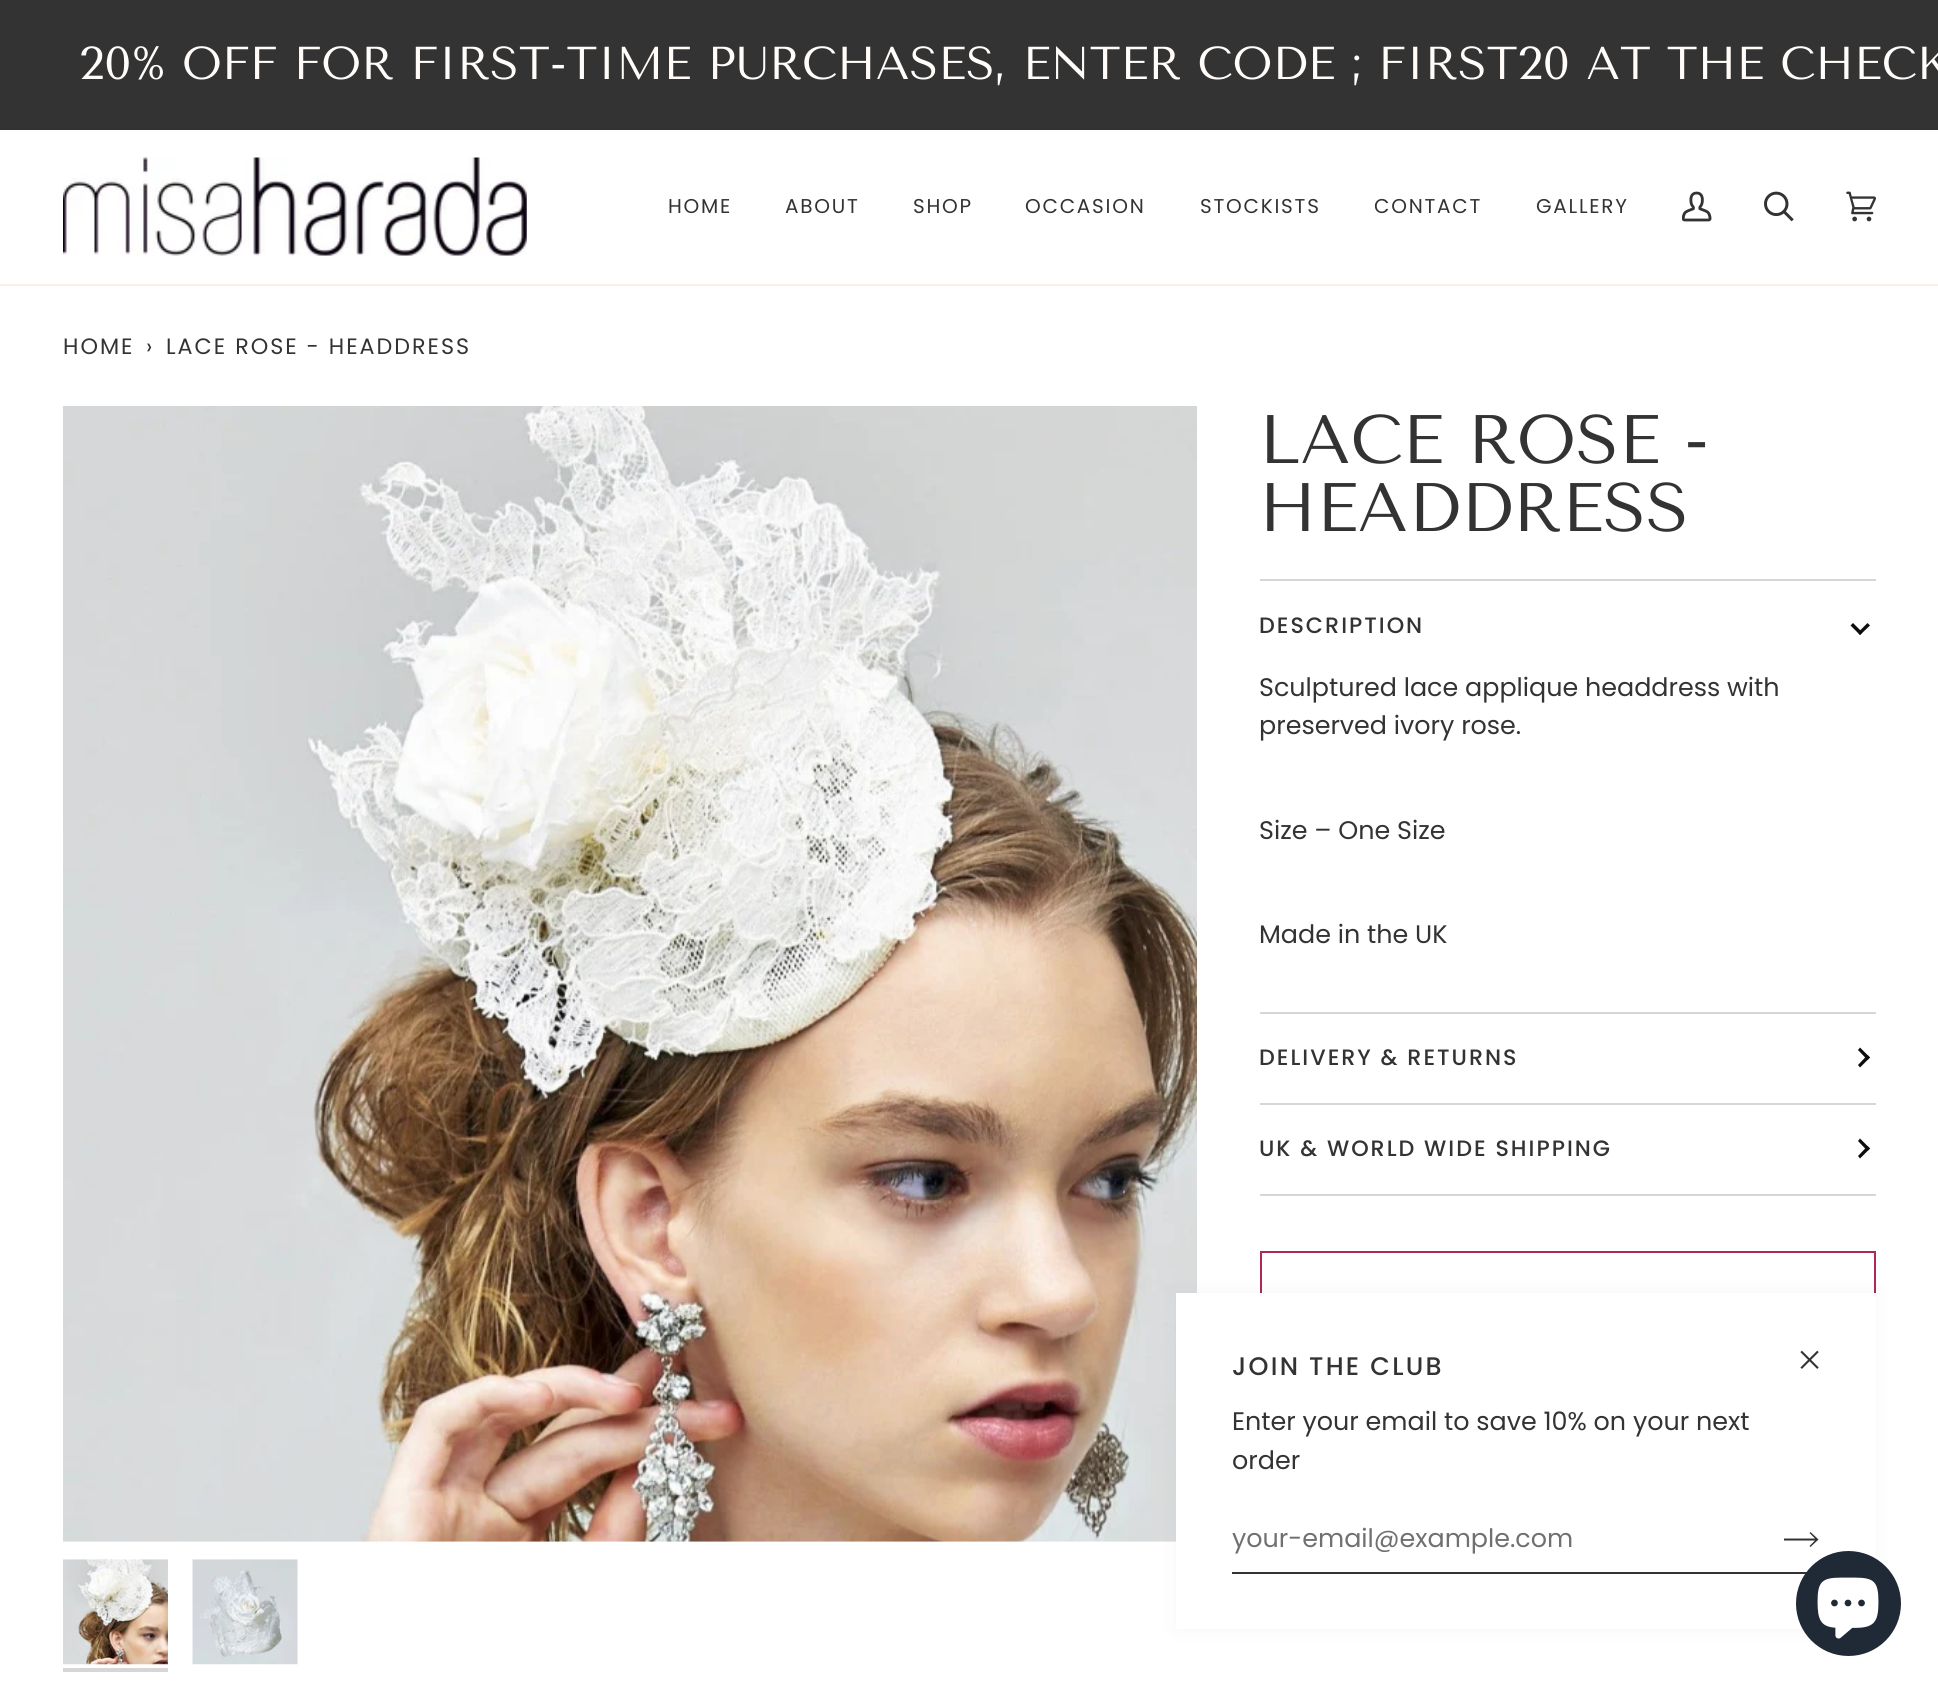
import math
import cairocffi as cairo

surface = cairo.ImageSurface(cairo.FORMAT_RGB24, 1938, 1691)
cr = cairo.Context(surface)
options = cairo.FontOptions()
options.set_hint_metrics(cairo.HINT_METRICS_OFF)
options.set_hint_style(cairo.HINT_STYLE_NONE)
cr.set_font_options(options)
cr.set_miter_limit(4)


def use_color(code):
    cr.set_source_rgb(*(v / 255 for v in bytes.fromhex(code[-6:])))


def spaced_text(x, y, s, letter, word):
    cr.move_to(x, y)
    for ch in s:
        cr.show_text(ch)
        cr.rel_move_to(letter + word * (ch == ' '), 0)


def round_rect(x, y, w, h, r):
    cr.new_sub_path()
    for i, (u, v) in enumerate([(x + w - r, y + h - r), (x + r, y + h - r), (x + r, y + r), (x + w - r, y + r)]):
        cr.arc(u, v, r, i * math.pi / 2, (i + 1) * math.pi / 2)
    cr.close_path()


def shadow(x, y, w, h, r, blur, alpha):
    cr.push_group_with_content(cairo.CONTENT_ALPHA)
    cr.set_operator(cairo.OPERATOR_SOURCE)
    for i in range(15, -16, -2):
        e = blur * i / 6
        if min(w, h) + 2 * e > 0:
            cr.set_source_rgba(0, 0, 0, alpha * math.erfc((i - 1) / 8.5) / 2)
            round_rect(x - e, y - e, w + 2 * e, h + 2 * e, max(0, min(r + e + blur * .6, min(w, h) / 2 + e)))
            cr.fill()
    cr.mask(cr.pop_group())


def picture(path, x, y, w, h):
    cr.save()
    cr.set_source_surface(cairo.ImageSurface.create_from_png(path), x, y)
    cr.rectangle(x, y, w, h)
    cr.fill()
    cr.restore()


use_color("#ffffff")
cr.paint()
use_color("#333333")
cr.rectangle(0, 0, 1938, 130)
cr.fill()
cr.select_font_face("Tenor Sans")
cr.set_font_size(46.1)
use_color("#fffcf9")
cr.move_to(79, 79)
cr.show_text("20% OFF FOR FIRST-TIME PURCHASES, ENTER CODE ; FIRST20 AT THE CHECK")
use_color("#f8f0e7")
cr.rectangle(0, 284, 1938, 2)
cr.fill()
picture("img1.png", 63, 157, 464, 99)
cr.select_font_face("Poppins")
cr.set_font_size(20)
use_color("#333333")
spaced_text(668, 213, "HOME", 1.75, 0)
spaced_text(785, 213, "ABOUT", 1.75, 0)
spaced_text(913, 213, "SHOP", 1.75, 0)
spaced_text(1025, 213, "OCCASION", 1.75, 0)
spaced_text(1200, 213, "STOCKISTS", 1.75, 0)
spaced_text(1374, 213, "CONTACT", 1.75, 0)
spaced_text(1536, 213, "GALLERY", 1.75, 0)
picture("img2.png", 1682, 191, 30, 31)
picture("img3.png", 1764, 191, 30, 31)
picture("img4.png", 1846, 191, 30, 31)
cr.set_font_size(22.25)
spaced_text(63, 354, "HOME", 2, 0)
spaced_text(146, 354, "›", 2, 0)
spaced_text(166, 354, "LACE ROSE - HEADDRESS", 2, 0)
picture("img5.png", 63, 406, 1134, 1136)
picture("img6.png", 63, 1559, 105, 106)
use_color("#d6d6d6")
cr.rectangle(63, 1668, 105, 4)
cr.fill()
picture("img7.png", 192, 1559, 106, 106)
cr.select_font_face("Tenor Sans")
cr.set_font_size(68.5)
use_color("#333333")
cr.move_to(1259, 463)
cr.show_text("LACE ROSE -")
cr.move_to(1259, 531)
cr.show_text("HEADDRESS")
use_color("#d6d6d6")
cr.rectangle(1260, 579, 616, 2)
cr.fill()
cr.rectangle(1260, 1012, 616, 2)
cr.fill()
cr.select_font_face("Poppins Medium")
cr.set_font_size(22.25)
use_color("#333333")
spaced_text(1259, 633, "DESCRIPTION", 2, 0)
use_color("#0e0c0c")
cr.new_path()
cr.move_to(1858, 632.5)
cr.line_to(1867.5, 623)
cr.line_to(1870, 625.5)
cr.line_to(1860, 635)
cr.close_path()
cr.fill()
cr.new_path()
cr.move_to(1850.5, 625.5)
cr.line_to(1853, 623)
cr.line_to(1862.5, 632.5)
cr.line_to(1860, 635)
cr.close_path()
cr.fill()
cr.select_font_face("Poppins")
cr.set_font_size(25.4)
use_color("#333333")
cr.move_to(1259, 696)
cr.show_text("Sculptured lace applique headdress with")
cr.move_to(1259, 734)
cr.show_text("preserved ivory rose.")
cr.move_to(1259, 839)
cr.show_text("Size – One Size")
cr.move_to(1259, 943)
cr.show_text("Made in the UK")
use_color("#d6d6d6")
cr.rectangle(1260, 1103, 616, 2)
cr.fill()
cr.select_font_face("Poppins Medium")
cr.set_font_size(22.25)
use_color("#333333")
spaced_text(1259, 1065, "DELIVERY & RETURNS", 2, 0)
use_color("#0e0c0c")
cr.new_path()
cr.move_to(1867.5, 1060)
cr.line_to(1858, 1050)
cr.line_to(1860, 1047.5)
cr.line_to(1870, 1057.5)
cr.close_path()
cr.fill()
cr.new_path()
cr.move_to(1860, 1067.5)
cr.line_to(1858, 1065)
cr.line_to(1867.5, 1055)
cr.line_to(1870, 1057.5)
cr.close_path()
cr.fill()
use_color("#d6d6d6")
cr.rectangle(1260, 1194, 616, 2)
cr.fill()
use_color("#333333")
spaced_text(1259, 1156, "UK & WORLD WIDE SHIPPING", 2, 0)
use_color("#0e0c0c")
cr.new_path()
cr.move_to(1867.5, 1151)
cr.line_to(1858, 1141)
cr.line_to(1860, 1138.5)
cr.line_to(1870, 1148.5)
cr.close_path()
cr.fill()
cr.new_path()
cr.move_to(1860, 1158.5)
cr.line_to(1858, 1156)
cr.line_to(1867.5, 1146)
cr.line_to(1870, 1148.5)
cr.close_path()
cr.fill()
cr.rectangle(1261, 1252, 614, 93)
use_color("#af2752")
cr.stroke()
use_color("#333333")
shadow(1176, 1293, 700, 336, 0, 9, 0.05)
use_color("#ffffff")
cr.rectangle(1176, 1293, 700, 336)
cr.fill()
cr.set_font_size(25.4)
use_color("#333333")
spaced_text(1232, 1375, "JOIN THE CLUB", 2.25, 0)
picture("img8.png", 1800, 1350, 19, 19)
cr.select_font_face("Poppins")
cr.move_to(1232, 1430)
cr.show_text("Enter your email to save 10% on your next")
cr.move_to(1232, 1469)
cr.show_text("order")
cr.rectangle(1232, 1572, 575, 2)
cr.fill()
use_color("#707070")
cr.move_to(1232, 1547)
cr.show_text("your-email@example.com")
use_color("#333333")
cr.new_path()
cr.move_to(1809.5, 1533)
cr.line_to(1810.5, 1532)
cr.line_to(1818.5, 1539.5)
cr.line_to(1810.5, 1547)
cr.line_to(1809.5, 1546)
cr.line_to(1815, 1540.5)
cr.line_to(1784, 1540.5)
cr.line_to(1784, 1538.5)
cr.line_to(1815, 1538.5)
cr.close_path()
cr.fill()
use_color("#202a36")
cr.arc(1848.5, 1603.5, 52.5, 0, 2 * math.pi)
cr.fill()
picture("img9.png", 1817, 1577, 62, 62)
surface.write_to_png("result.png")
